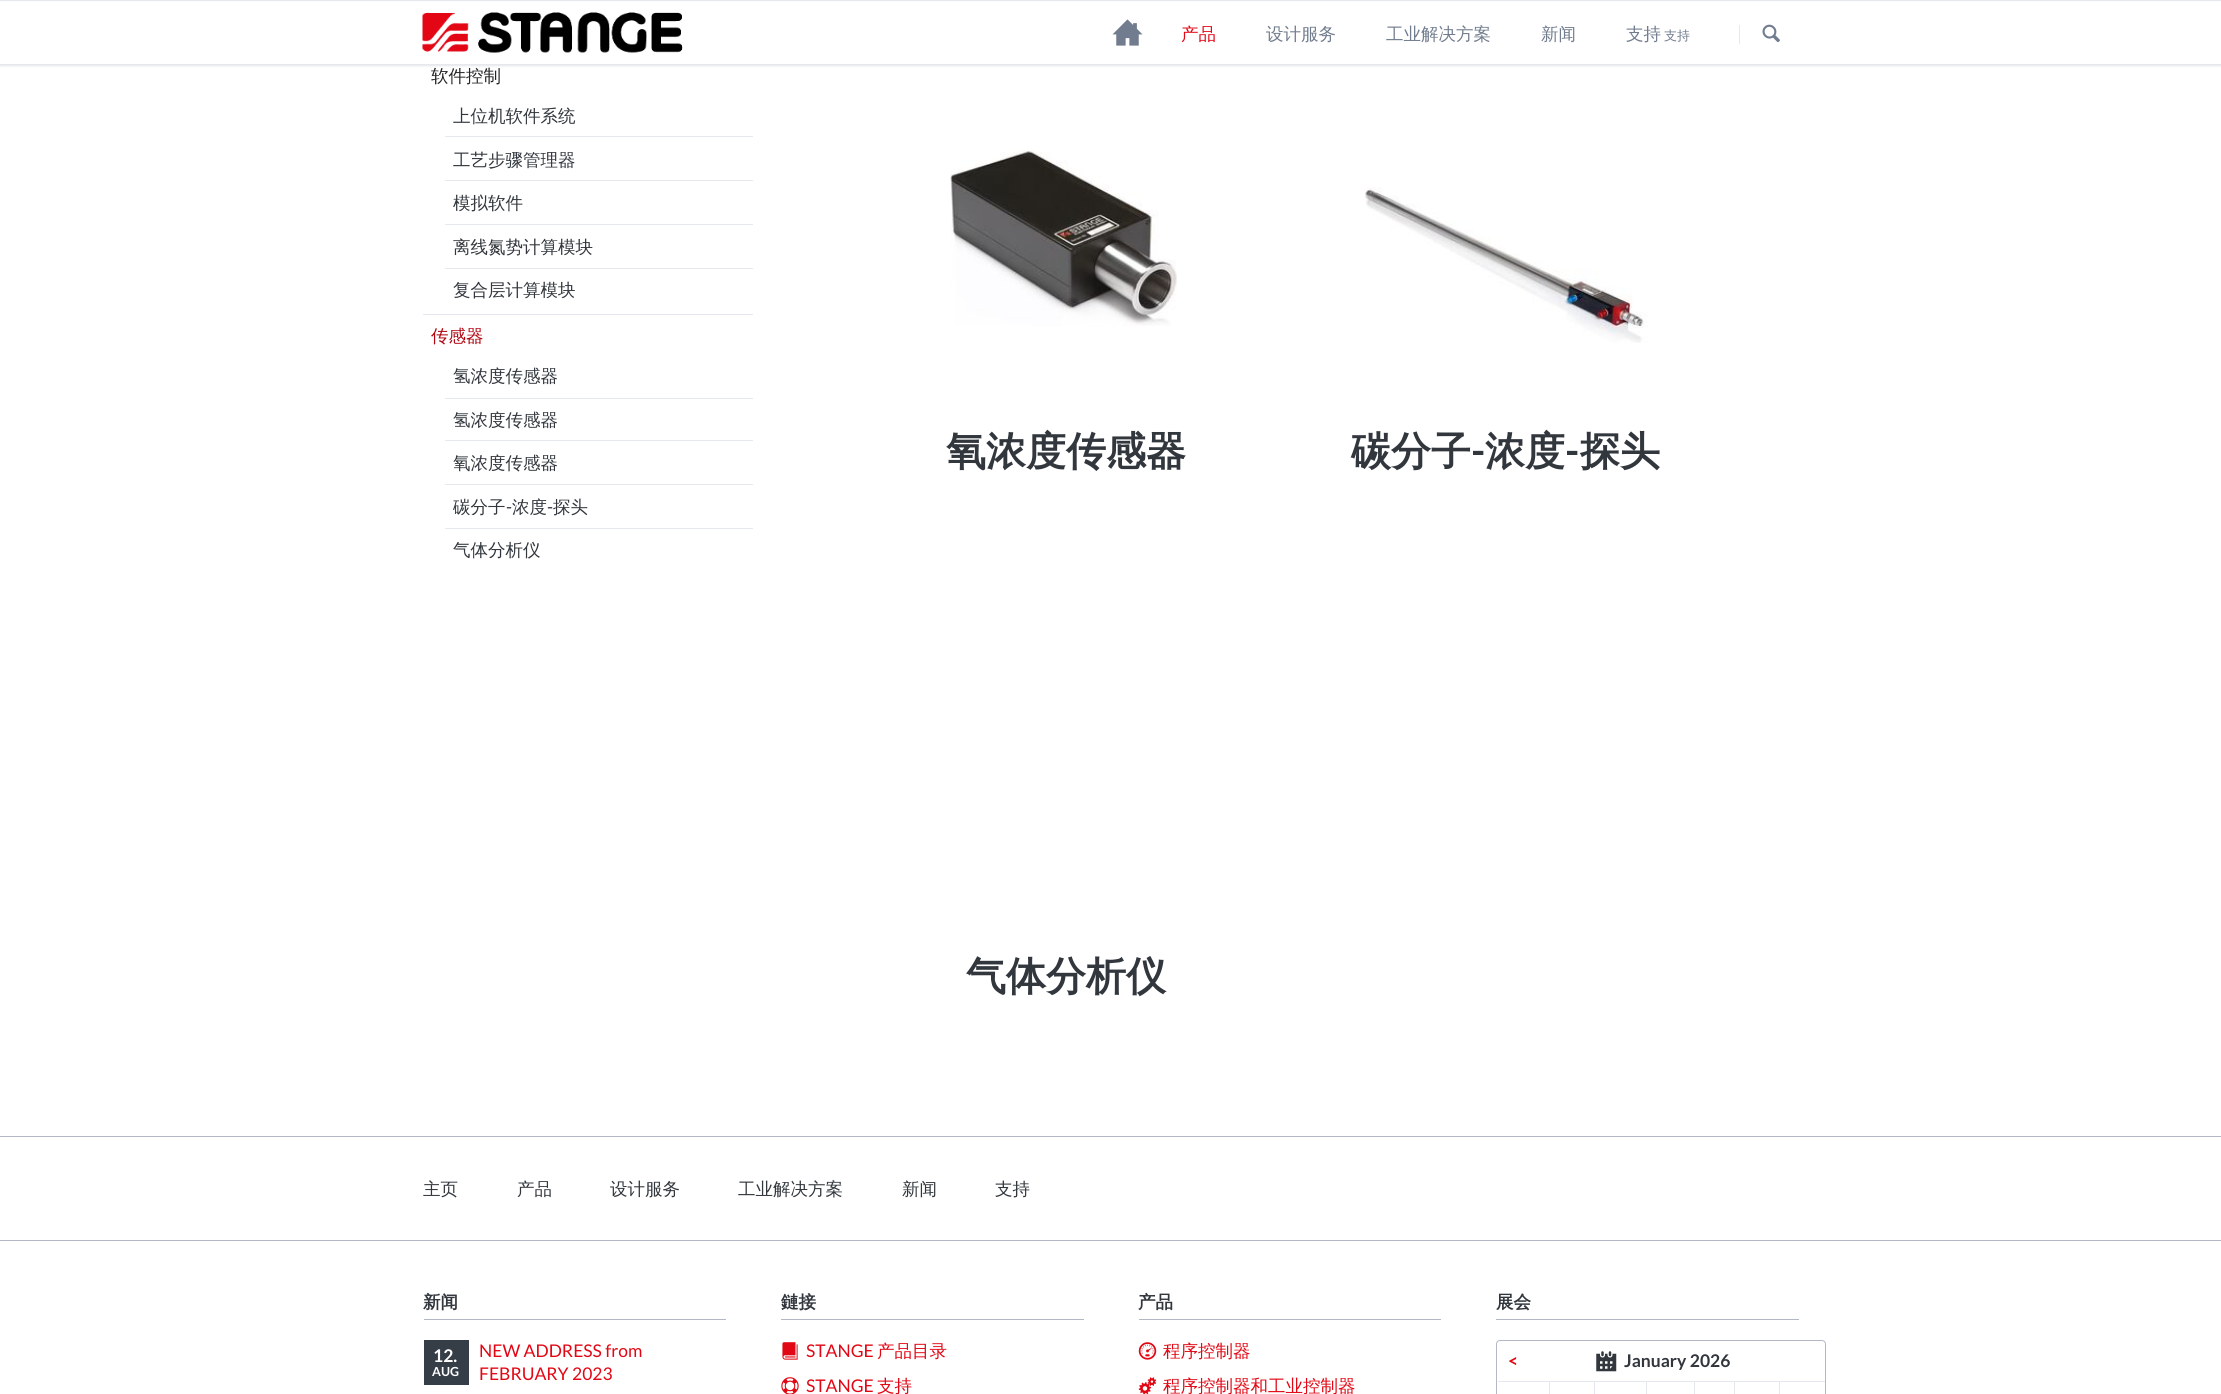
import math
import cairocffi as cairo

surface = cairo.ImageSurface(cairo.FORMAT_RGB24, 2221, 1394)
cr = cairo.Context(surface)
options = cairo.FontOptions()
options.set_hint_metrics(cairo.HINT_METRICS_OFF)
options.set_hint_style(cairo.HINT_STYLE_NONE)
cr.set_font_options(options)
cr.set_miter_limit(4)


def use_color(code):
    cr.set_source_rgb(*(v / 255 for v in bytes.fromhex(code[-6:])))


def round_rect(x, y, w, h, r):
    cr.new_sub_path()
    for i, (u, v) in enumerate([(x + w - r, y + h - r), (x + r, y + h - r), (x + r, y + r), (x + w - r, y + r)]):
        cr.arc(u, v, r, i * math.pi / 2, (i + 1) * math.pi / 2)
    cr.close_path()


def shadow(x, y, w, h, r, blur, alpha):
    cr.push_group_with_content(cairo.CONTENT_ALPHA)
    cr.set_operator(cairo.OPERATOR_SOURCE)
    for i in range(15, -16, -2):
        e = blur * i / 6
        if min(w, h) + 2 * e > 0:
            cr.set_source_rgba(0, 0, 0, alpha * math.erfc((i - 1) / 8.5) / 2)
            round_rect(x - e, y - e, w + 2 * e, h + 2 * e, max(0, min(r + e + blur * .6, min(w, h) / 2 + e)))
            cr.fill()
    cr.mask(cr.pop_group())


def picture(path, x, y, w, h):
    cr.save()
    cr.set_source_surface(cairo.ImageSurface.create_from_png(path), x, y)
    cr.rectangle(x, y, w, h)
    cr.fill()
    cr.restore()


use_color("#ffffff")
cr.paint()
use_color("#e5e8ee")
cr.rectangle(0, 0, 2221, 1)
cr.fill()
use_color("#000000")
shadow(0, 3, 2221, 63, 0, 1, 0.1)
use_color("#ffffff")
cr.rectangle(0, 2, 2221, 62)
cr.fill()
use_color("#e5e8ee")
cr.rectangle(0, 64, 2221, 1)
cr.fill()
picture("img1.png", 422, 12, 261, 41)
picture("img2.png", 1112, 19, 31, 27)
cr.select_font_face("WenQuanYi Zen Hei Medium")
cr.set_font_size(17.5)
use_color("#e20714")
cr.move_to(1181, 40)
cr.show_text("产品")
use_color("#717c8e")
cr.move_to(1266, 40)
cr.show_text("设计服务")
cr.move_to(1386, 40)
cr.show_text("工业解决方案")
cr.move_to(1541, 40)
cr.show_text("新闻")
cr.move_to(1626, 40)
cr.show_text("支持")
cr.set_font_size(13)
cr.move_to(1664, 40)
cr.show_text("支持")
use_color("#e5e8ee")
cr.rectangle(1739, 25, 1, 19)
cr.fill()
picture("img3.png", 1762, 24, 18, 19)
cr.set_font_size(17.5)
use_color("#242424")
cr.move_to(431, 82)
cr.show_text("软件控制")
use_color("#32373d")
cr.move_to(453, 122)
cr.show_text("上位机软件系统")
use_color("#e5e8ee")
cr.rectangle(445, 136, 308, 1)
cr.fill()
use_color("#32373d")
cr.move_to(453, 166)
cr.show_text("工艺步骤管理器")
use_color("#e5e8ee")
cr.rectangle(445, 180, 308, 1)
cr.fill()
use_color("#32373d")
cr.move_to(453, 209)
cr.show_text("模拟软件")
use_color("#e5e8ee")
cr.rectangle(445, 224, 308, 1)
cr.fill()
use_color("#32373d")
cr.move_to(453, 253)
cr.show_text("离线氮势计算模块")
use_color("#e5e8ee")
cr.rectangle(445, 268, 308, 1)
cr.fill()
use_color("#32373d")
cr.move_to(453, 296)
cr.show_text("复合层计算模块")
use_color("#e5e8ee")
cr.rectangle(423, 314, 330, 1)
cr.fill()
use_color("#b10510")
cr.move_to(431, 342)
cr.show_text("传感器")
use_color("#32373d")
cr.move_to(453, 382)
cr.show_text("氢浓度传感器")
use_color("#e5e8ee")
cr.rectangle(445, 398, 308, 1)
cr.fill()
use_color("#32373d")
cr.move_to(453, 426)
cr.show_text("氢浓度传感器")
use_color("#e5e8ee")
cr.rectangle(445, 440, 308, 1)
cr.fill()
use_color("#32373d")
cr.move_to(453, 469)
cr.show_text("氧浓度传感器")
use_color("#e5e8ee")
cr.rectangle(445, 484, 308, 1)
cr.fill()
use_color("#32373d")
cr.move_to(453, 513)
cr.show_text("碳分子")
cr.select_font_face("Lato")
cr.move_to(506, 513)
cr.show_text("-")
cr.select_font_face("WenQuanYi Zen Hei Medium")
cr.move_to(512, 513)
cr.show_text("浓度")
cr.select_font_face("Lato")
cr.move_to(547, 513)
cr.show_text("-")
cr.select_font_face("WenQuanYi Zen Hei Medium")
cr.move_to(553, 513)
cr.show_text("探头")
use_color("#e5e8ee")
cr.rectangle(445, 528, 308, 1)
cr.fill()
use_color("#32373d")
cr.move_to(453, 556)
cr.show_text("气体分析仪")
picture("img4.png", 950, 150, 227, 176)
cr.select_font_face("WenQuanYi Zen Hei", cairo.FONT_SLANT_NORMAL, cairo.FONT_WEIGHT_BOLD)
cr.set_font_size(40)
cr.move_to(946, 465)
cr.show_text("氧浓度传感器")
picture("img5.png", 1365, 187, 283, 156)
cr.move_to(1351, 465)
cr.show_text("碳分子")
cr.select_font_face("Lato", cairo.FONT_SLANT_NORMAL, cairo.FONT_WEIGHT_BOLD)
cr.move_to(1471, 465)
cr.show_text("-")
cr.select_font_face("WenQuanYi Zen Hei", cairo.FONT_SLANT_NORMAL, cairo.FONT_WEIGHT_BOLD)
cr.move_to(1485, 465)
cr.show_text("浓度")
cr.select_font_face("Lato", cairo.FONT_SLANT_NORMAL, cairo.FONT_WEIGHT_BOLD)
cr.move_to(1565, 465)
cr.show_text("-")
cr.select_font_face("WenQuanYi Zen Hei", cairo.FONT_SLANT_NORMAL, cairo.FONT_WEIGHT_BOLD)
cr.move_to(1580, 465)
cr.show_text("探头")
cr.move_to(966, 990)
cr.show_text("气体分析仪")
use_color("#b2b9c4")
cr.rectangle(0, 1136, 2221, 1)
cr.fill()
cr.rectangle(0, 1240, 2221, 1)
cr.fill()
cr.select_font_face("WenQuanYi Zen Hei Medium")
cr.set_font_size(17.5)
use_color("#32373d")
cr.move_to(423, 1195)
cr.show_text("主页")
cr.move_to(517, 1195)
cr.show_text("产品")
cr.move_to(610, 1195)
cr.show_text("设计服务")
cr.move_to(738, 1195)
cr.show_text("工业解决方案")
cr.move_to(902, 1195)
cr.show_text("新闻")
cr.move_to(995, 1195)
cr.show_text("支持")
use_color("#b2b9c4")
cr.rectangle(424, 1319, 302, 1)
cr.fill()
cr.select_font_face("WenQuanYi Zen Hei", cairo.FONT_SLANT_NORMAL, cairo.FONT_WEIGHT_BOLD)
use_color("#32373d")
cr.move_to(423, 1308)
cr.show_text("新闻")
use_color("#353d47")
cr.rectangle(424, 1340, 45, 45)
cr.fill()
cr.select_font_face("Lato", cairo.FONT_SLANT_NORMAL, cairo.FONT_WEIGHT_BOLD)
use_color("#ffffff")
cr.move_to(433, 1362)
cr.show_text("12.")
cr.set_font_size(12.5)
cr.move_to(432, 1376)
cr.show_text("AUG")
cr.select_font_face("Lato")
cr.set_font_size(17.5)
use_color("#e20714")
cr.move_to(479, 1357)
cr.show_text("NEW ADDRESS from")
cr.move_to(479, 1380)
cr.show_text("FEBRUARY 2023")
use_color("#b2b9c4")
cr.rectangle(781, 1319, 303, 1)
cr.fill()
cr.select_font_face("WenQuanYi Zen Hei", cairo.FONT_SLANT_NORMAL, cairo.FONT_WEIGHT_BOLD)
use_color("#32373d")
cr.move_to(781, 1308)
cr.show_text("鏈接")
picture("img6.png", 782, 1342, 16, 18)
cr.select_font_face("Lato")
use_color("#e20714")
cr.move_to(806, 1357)
cr.show_text("STANGE")
cr.select_font_face("WenQuanYi Zen Hei Medium")
cr.move_to(877, 1357)
cr.show_text("产品目录")
picture("img7.png", 781, 1377, 18, 17)
cr.select_font_face("Lato")
cr.move_to(806, 1392)
cr.show_text("STANGE")
cr.select_font_face("WenQuanYi Zen Hei Medium")
cr.move_to(877, 1392)
cr.show_text("支持")
use_color("#b2b9c4")
cr.rectangle(1139, 1319, 302, 1)
cr.fill()
cr.select_font_face("WenQuanYi Zen Hei", cairo.FONT_SLANT_NORMAL, cairo.FONT_WEIGHT_BOLD)
use_color("#32373d")
cr.move_to(1138, 1308)
cr.show_text("产品")
picture("img8.png", 1138, 1342, 19, 18)
cr.select_font_face("WenQuanYi Zen Hei Medium")
use_color("#e20714")
cr.move_to(1163, 1357)
cr.show_text("程序控制器")
picture("img9.png", 1138, 1377, 19, 17)
cr.move_to(1163, 1392)
cr.show_text("程序控制器和工业控制器")
use_color("#b2b9c4")
cr.rectangle(1496, 1319, 303, 1)
cr.fill()
cr.select_font_face("WenQuanYi Zen Hei", cairo.FONT_SLANT_NORMAL, cairo.FONT_WEIGHT_BOLD)
use_color("#32373d")
cr.move_to(1496, 1308)
cr.show_text("展会")
round_rect(1496.5, 1340.5, 329, 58, 3.5)
use_color("#b2b9c4")
cr.set_line_width(1)
cr.stroke()
cr.select_font_face("Lato", cairo.FONT_SLANT_NORMAL, cairo.FONT_WEIGHT_BOLD)
use_color("#e20714")
cr.move_to(1508, 1367)
cr.show_text("<")
picture("img10.png", 1596, 1351, 21, 21)
use_color("#32373d")
cr.move_to(1624, 1367)
cr.show_text("January 2026")
use_color("#e5e8ee")
cr.rectangle(1498, 1381, 327, 1)
cr.fill()
cr.rectangle(1549, 1381, 1, 13)
cr.fill()
cr.rectangle(1594, 1381, 1, 13)
cr.fill()
cr.rectangle(1646, 1381, 1, 13)
cr.fill()
cr.rectangle(1694, 1381, 1, 13)
cr.fill()
cr.rectangle(1734, 1381, 1, 13)
cr.fill()
cr.rectangle(1779, 1381, 1, 13)
cr.fill()
surface.write_to_png("result.png")
